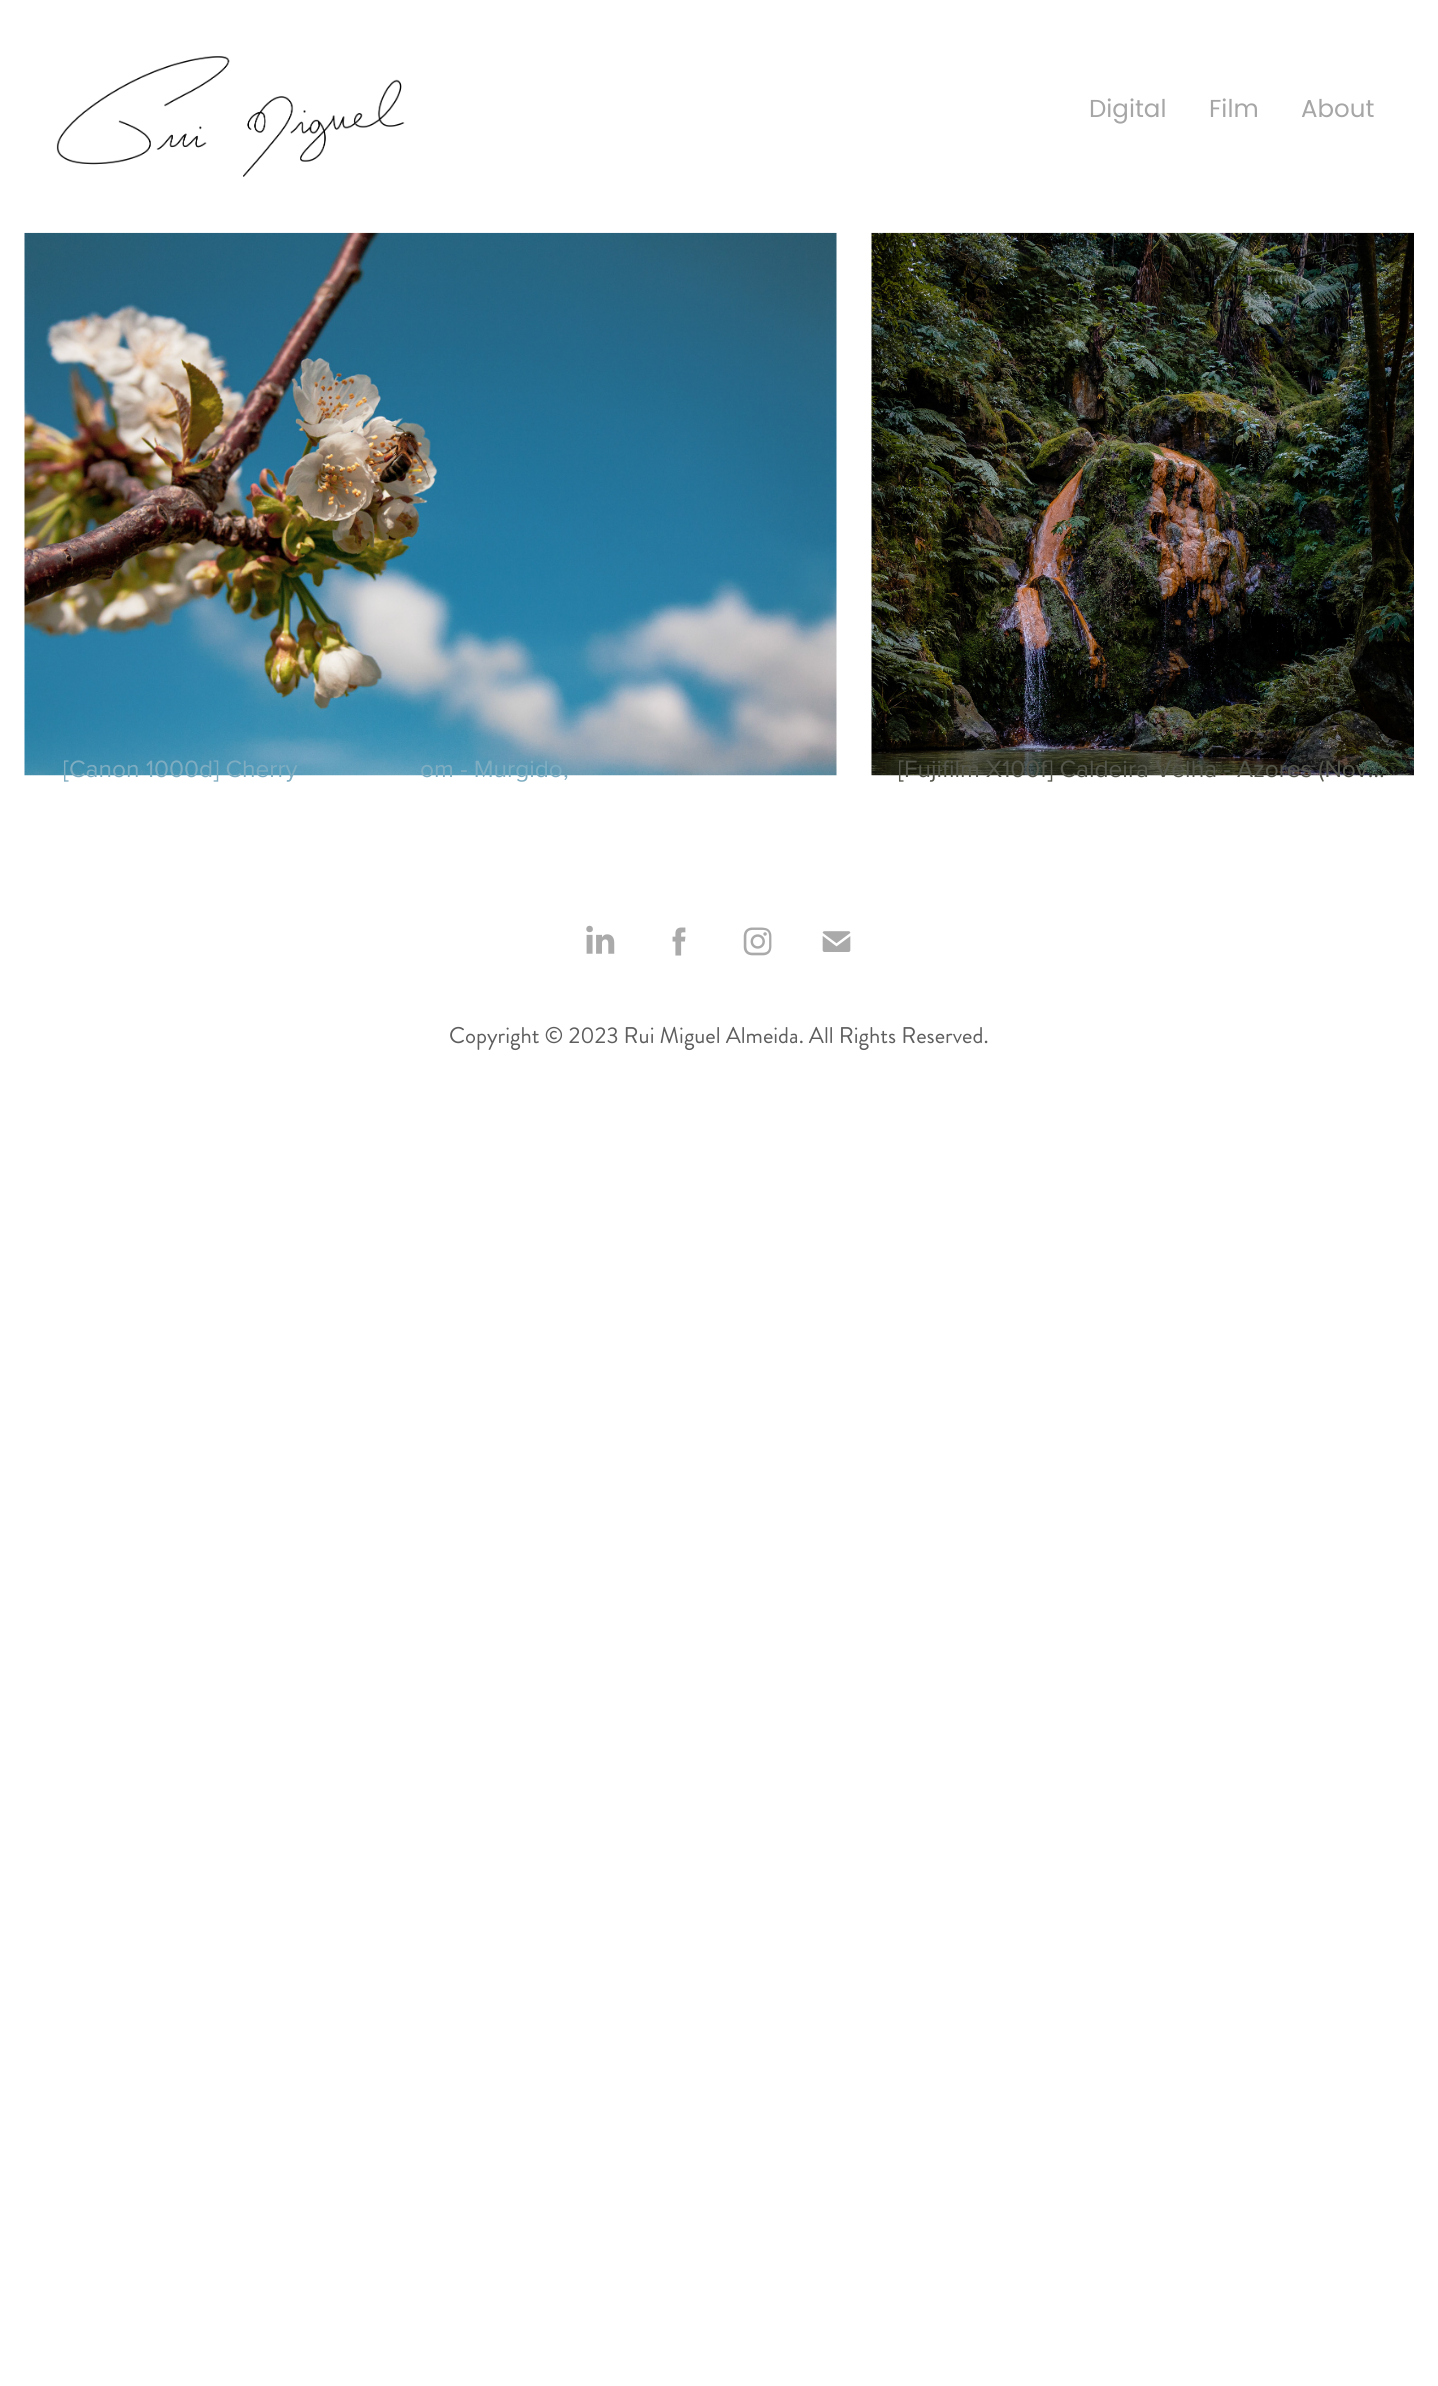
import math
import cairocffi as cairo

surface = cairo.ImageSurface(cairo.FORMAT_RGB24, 1438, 2386)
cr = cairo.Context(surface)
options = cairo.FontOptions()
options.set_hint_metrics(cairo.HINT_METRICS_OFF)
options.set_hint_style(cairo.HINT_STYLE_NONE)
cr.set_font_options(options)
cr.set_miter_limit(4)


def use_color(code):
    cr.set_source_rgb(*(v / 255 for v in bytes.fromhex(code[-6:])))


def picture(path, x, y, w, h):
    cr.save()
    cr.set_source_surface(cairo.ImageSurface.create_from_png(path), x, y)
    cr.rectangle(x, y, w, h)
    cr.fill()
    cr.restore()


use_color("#ffffff")
cr.paint()
picture("img1.png", 56, 56, 349, 121)
cr.select_font_face("Poppins")
cr.set_font_size(24.5)
use_color("#a6a6a6")
cr.move_to(1089, 117)
cr.show_text("Digital")
cr.move_to(1209, 117)
cr.show_text("Film")
cr.move_to(1301, 117)
cr.show_text("About")
picture("img2.png", 24, 232, 813, 544)
cr.select_font_face("Proxima Nova")
use_color("#7eacc1")
cr.move_to(63, 777)
cr.show_text("[Canon 1000d] Cherry")
cr.move_to(420, 777)
cr.show_text("om - Murgido,")
picture("img3.png", 871, 232, 543, 544)
use_color("#54564b")
cr.move_to(898, 777)
cr.show_text("[Fujifilm X100f] Caldeira Velha - Azores (Nov…")
picture("img4.png", 586, 925, 29, 29)
picture("img5.png", 672, 927, 14, 29)
picture("img6.png", 743, 927, 29, 29)
picture("img7.png", 822, 931, 29, 21)
cr.select_font_face("Brandon Grotesque")
cr.set_font_size(22.75)
use_color("#5e5e5e")
cr.move_to(449, 1043)
cr.show_text("Copyright © 2023 Rui Miguel Almeida. All Rights Reserved.")
surface.write_to_png("result.png")
